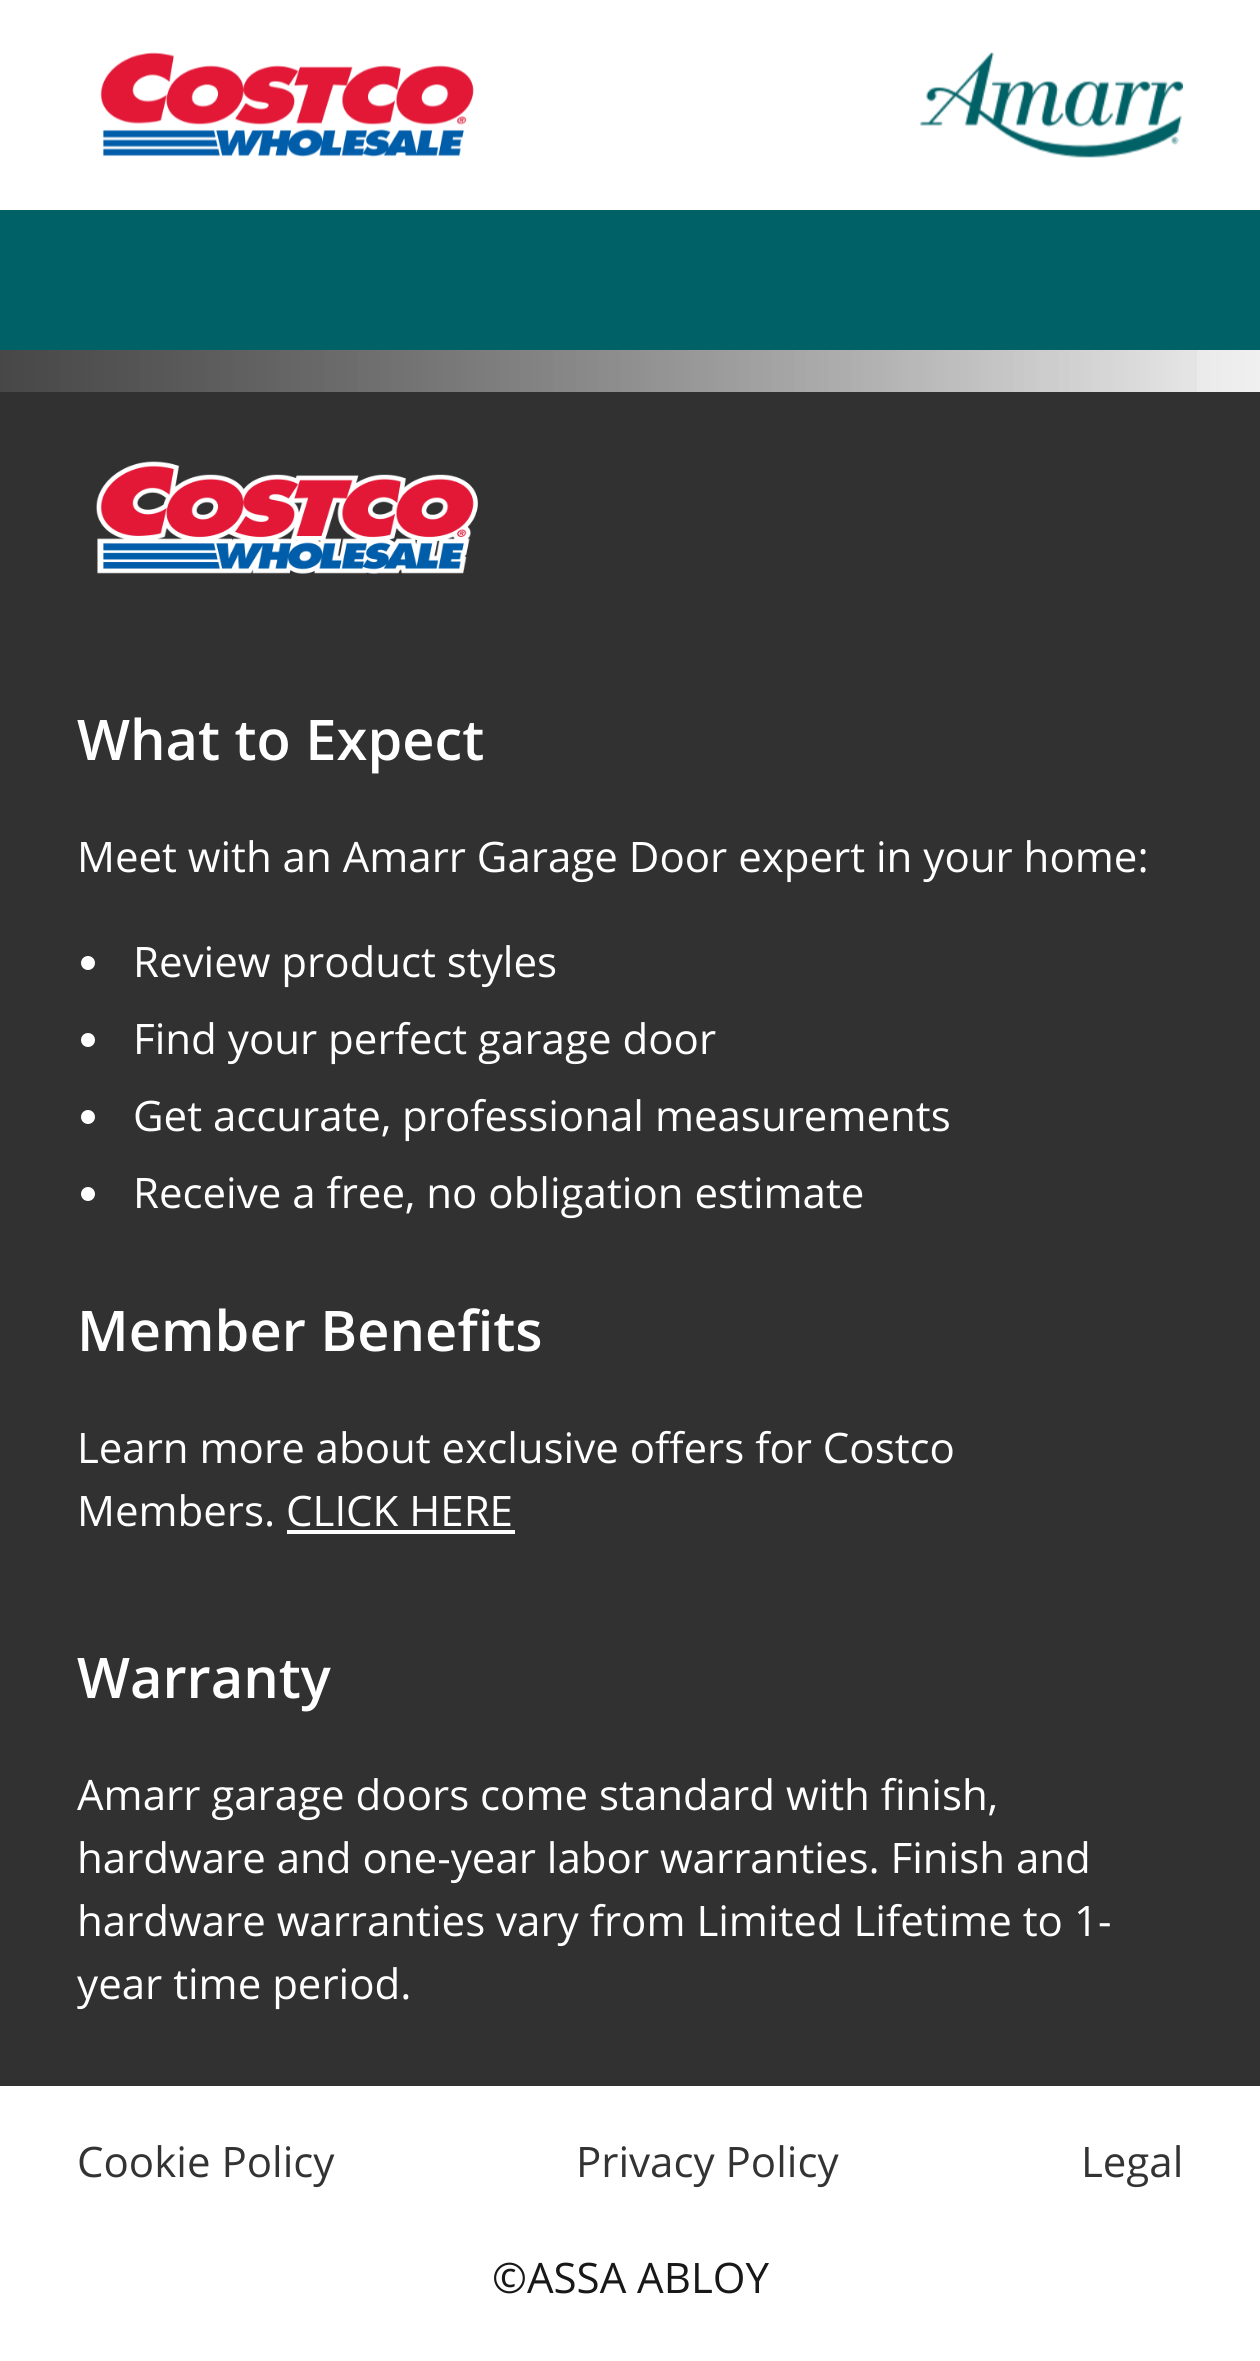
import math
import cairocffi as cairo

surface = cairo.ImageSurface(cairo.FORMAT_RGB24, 1260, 2361)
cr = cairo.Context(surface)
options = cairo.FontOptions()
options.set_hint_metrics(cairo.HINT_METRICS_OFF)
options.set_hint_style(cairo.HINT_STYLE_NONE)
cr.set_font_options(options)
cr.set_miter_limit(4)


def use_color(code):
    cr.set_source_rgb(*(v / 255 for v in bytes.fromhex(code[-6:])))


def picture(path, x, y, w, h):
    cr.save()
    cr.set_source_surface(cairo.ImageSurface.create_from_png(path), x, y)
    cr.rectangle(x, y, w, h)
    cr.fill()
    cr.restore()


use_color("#ffffff")
cr.paint()
picture("img1.png", 100, 52, 374, 105)
picture("img2.png", 920, 52, 263, 106)
use_color("#006166")
cr.rectangle(0, 210, 1260, 140)
cr.fill()
gradient = cairo.LinearGradient(0, -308, 1260, -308)
gradient.add_color_stop_rgba(0, 0.49, 0.49, 0.49, 1)
gradient.add_color_stop_rgba(1, 0.941, 0.941, 0.941, 1)
cr.set_source(gradient)
cr.rectangle(0, 350, 1260, 42)
cr.fill()
gradient = cairo.LinearGradient(0, -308, 1260, -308)
gradient.add_color_stop_rgba(0, 0, 0, 0, 0.43)
gradient.add_color_stop_rgba(1, 0, 0, 0, 0)
cr.set_source(gradient)
cr.rectangle(0, 350, 1197, 42)
cr.fill()
use_color("#313131")
cr.rectangle(0, 392, 1260, 1694)
cr.fill()
picture("img3.png", 96, 461, 382, 113)
cr.select_font_face("Open Sans SemiBold")
cr.set_font_size(56)
use_color("#ffffff")
cr.move_to(77, 760)
cr.show_text("What to Expect")
cr.select_font_face("Open Sans")
cr.set_font_size(42)
cr.move_to(77, 872)
cr.show_text("Meet with an Amarr Garage Door expert in your home:")
cr.new_path()
cr.arc(88, 963, 7, 0, 2 * math.pi)
cr.fill()
cr.move_to(133, 977)
cr.show_text("Review product styles")
cr.new_path()
cr.arc(88, 1040, 7, 0, 2 * math.pi)
cr.fill()
cr.move_to(133, 1054)
cr.show_text("Find your perfect garage door")
cr.new_path()
cr.arc(88, 1117, 7, 0, 2 * math.pi)
cr.fill()
cr.move_to(133, 1131)
cr.show_text("Get accurate, professional measurements")
cr.new_path()
cr.arc(88, 1194, 7, 0, 2 * math.pi)
cr.fill()
cr.move_to(133, 1208)
cr.show_text("Receive a free, no obligation estimate")
cr.select_font_face("Open Sans SemiBold")
cr.set_font_size(56)
cr.move_to(77, 1351)
cr.show_text("Member Benefits")
cr.select_font_face("Open Sans")
cr.set_font_size(42)
cr.move_to(77, 1463)
cr.show_text("Learn more about exclusive offers for Costco")
cr.move_to(77, 1526)
cr.show_text("Members. CLICK HERE")
cr.rectangle(287, 1530, 228, 4)
cr.fill()
cr.select_font_face("Open Sans SemiBold")
cr.set_font_size(56)
cr.move_to(77, 1698)
cr.show_text("Warranty")
cr.select_font_face("Open Sans")
cr.set_font_size(42)
cr.move_to(77, 1810)
cr.show_text("Amarr garage doors come standard with finish,")
cr.move_to(77, 1873)
cr.show_text("hardware and one-year labor warranties. Finish and")
cr.move_to(77, 1936)
cr.show_text("hardware warranties vary from Limited Lifetime to 1-")
cr.move_to(77, 1999)
cr.show_text("year time period.")
use_color("#333333")
cr.move_to(77, 2177)
cr.show_text("Cookie Policy")
cr.move_to(576, 2177)
cr.show_text("Privacy Policy")
cr.move_to(1081, 2177)
cr.show_text("Legal")
use_color("#181818")
cr.move_to(492, 2293)
cr.show_text("©ASSA ABLOY")
surface.write_to_png("result.png")
